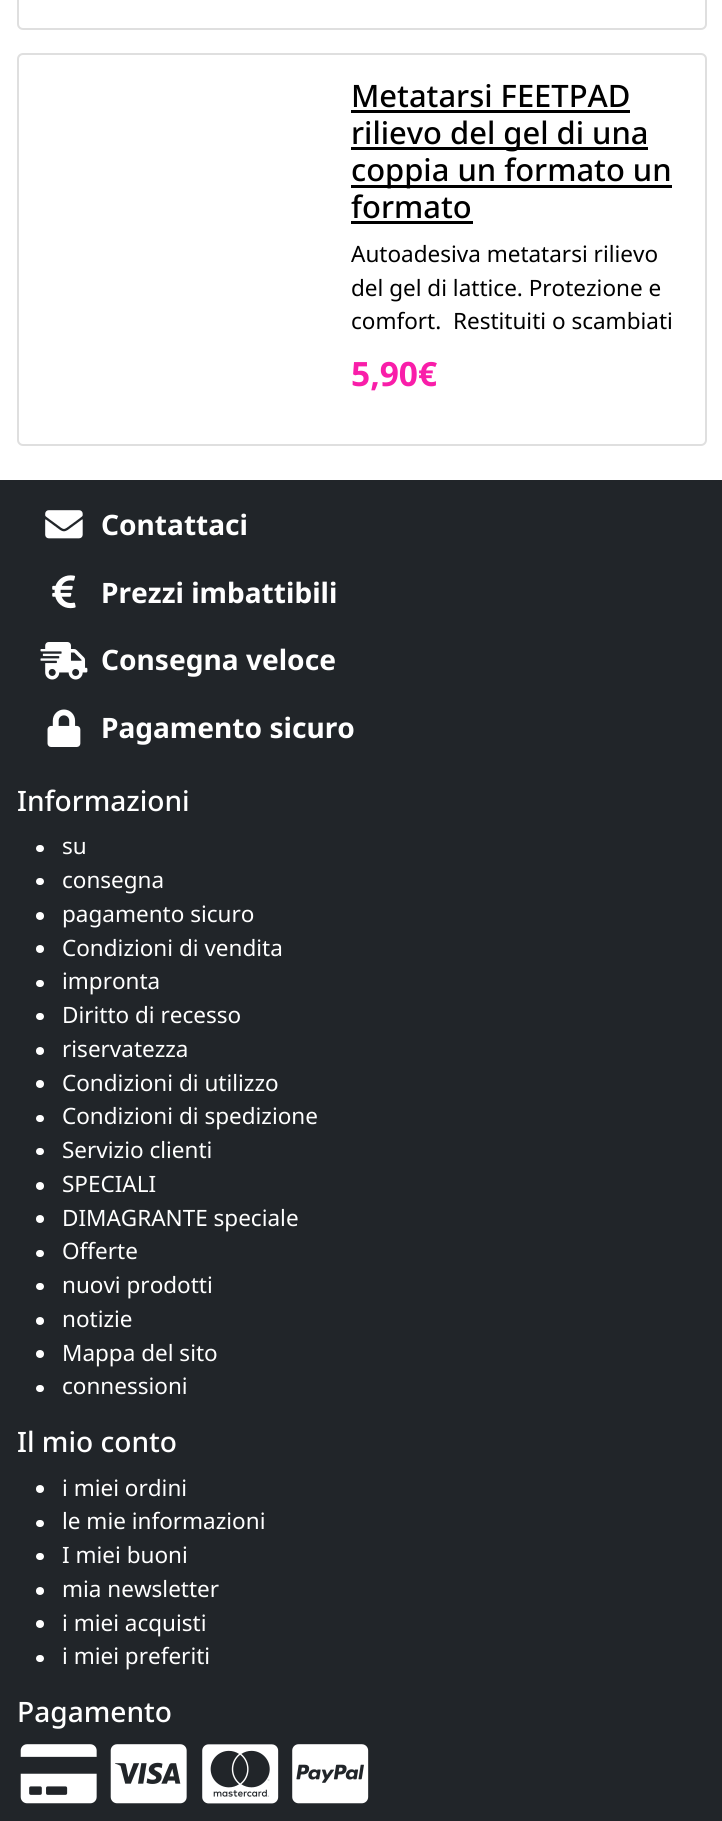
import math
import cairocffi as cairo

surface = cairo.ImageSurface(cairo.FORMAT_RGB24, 722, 1821)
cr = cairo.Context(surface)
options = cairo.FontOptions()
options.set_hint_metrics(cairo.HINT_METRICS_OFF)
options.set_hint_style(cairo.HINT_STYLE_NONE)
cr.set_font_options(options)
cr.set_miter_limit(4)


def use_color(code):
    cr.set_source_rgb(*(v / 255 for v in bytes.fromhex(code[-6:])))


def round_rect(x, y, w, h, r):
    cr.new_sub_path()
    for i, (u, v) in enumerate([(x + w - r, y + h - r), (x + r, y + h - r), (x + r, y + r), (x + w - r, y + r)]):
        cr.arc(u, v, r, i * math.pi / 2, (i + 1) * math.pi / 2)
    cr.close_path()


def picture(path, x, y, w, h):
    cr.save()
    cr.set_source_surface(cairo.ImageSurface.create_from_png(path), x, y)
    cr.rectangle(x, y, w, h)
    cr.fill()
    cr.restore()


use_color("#ffffff")
cr.paint()
round_rect(18, -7, 688, 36, 5)
use_color("#dfdfdf")
cr.stroke()
round_rect(18, 54, 688, 391, 5)
cr.stroke()
cr.select_font_face("Noto Sans Medium")
cr.set_font_size(30.9)
use_color("#000000")
cr.move_to(351, 107)
cr.show_text("Metatarsi FEETPAD")
cr.rectangle(351, 110, 279, 3)
cr.fill()
cr.rectangle(351, 147, 297, 3)
cr.fill()
cr.move_to(351, 144)
cr.show_text("rilievo del gel di una")
cr.rectangle(351, 185, 321, 3)
cr.fill()
cr.move_to(351, 181)
cr.show_text("coppia un formato un")
cr.move_to(351, 218)
cr.show_text("formato")
cr.rectangle(351, 221, 122, 3)
cr.fill()
cr.select_font_face("Noto Sans")
cr.set_font_size(22.5)
cr.move_to(351, 262)
cr.show_text("Autoadesiva metatarsi rilievo")
cr.move_to(351, 296)
cr.show_text("del gel di lattice. Protezione e")
cr.move_to(351, 329)
cr.show_text("comfort.  Restituiti o scambiati")
cr.select_font_face("Noto Sans", cairo.FONT_SLANT_NORMAL, cairo.FONT_WEIGHT_BOLD)
cr.set_font_size(33.5)
use_color("#f91ea9")
cr.move_to(351, 386)
cr.show_text("5,90€")
use_color("#212529")
cr.rectangle(0, 480, 722, 1341)
cr.fill()
picture("img1.png", 45, 510, 38, 29)
cr.set_font_size(28.1)
use_color("#ffffff")
cr.move_to(101, 535)
cr.show_text("Contattaci")
picture("img2.png", 52, 575, 24, 34)
cr.move_to(101, 603)
cr.show_text("Prezzi imbattibili")
picture("img3.png", 40, 642, 48, 38)
cr.move_to(101, 670)
cr.show_text("Consegna veloce")
picture("img4.png", 47, 709, 34, 38)
cr.move_to(101, 738)
cr.show_text("Pagamento sicuro")
cr.select_font_face("Noto Sans Medium")
cr.move_to(17, 811)
cr.show_text("Informazioni")
round_rect(36, 845, 8, 7, 3.5)
cr.fill()
cr.select_font_face("Noto Sans")
cr.set_font_size(22.5)
cr.move_to(62, 854)
cr.show_text("su")
round_rect(36, 878, 8, 7, 3.5)
cr.fill()
cr.move_to(62, 888)
cr.show_text("consegna")
cr.new_path()
cr.arc(40, 916, 4, 0, 2 * math.pi)
cr.fill()
cr.move_to(62, 922)
cr.show_text("pagamento sicuro")
cr.new_path()
cr.arc(40, 949, 4, 0, 2 * math.pi)
cr.fill()
cr.move_to(62, 956)
cr.show_text("Condizioni di vendita")
round_rect(36, 980, 8, 7, 3.5)
cr.fill()
cr.move_to(62, 989)
cr.show_text("impronta")
round_rect(36, 1013, 8, 7, 3.5)
cr.fill()
cr.move_to(62, 1023)
cr.show_text("Diritto di recesso")
cr.new_path()
cr.arc(40, 1051, 4, 0, 2 * math.pi)
cr.fill()
cr.move_to(62, 1057)
cr.show_text("riservatezza")
cr.new_path()
cr.arc(40, 1084, 4, 0, 2 * math.pi)
cr.fill()
cr.move_to(62, 1091)
cr.show_text("Condizioni di utilizzo")
round_rect(36, 1115, 8, 7, 3.5)
cr.fill()
cr.move_to(62, 1124)
cr.show_text("Condizioni di spedizione")
round_rect(36, 1148, 8, 7, 3.5)
cr.fill()
cr.move_to(62, 1158)
cr.show_text("Servizio clienti")
cr.new_path()
cr.arc(40, 1186, 4, 0, 2 * math.pi)
cr.fill()
cr.move_to(62, 1192)
cr.show_text("SPECIALI")
cr.new_path()
cr.arc(40, 1219, 4, 0, 2 * math.pi)
cr.fill()
cr.move_to(62, 1226)
cr.show_text("DIMAGRANTE speciale")
round_rect(36, 1250, 8, 7, 3.5)
cr.fill()
cr.move_to(62, 1259)
cr.show_text("Offerte")
round_rect(36, 1283, 8, 7, 3.5)
cr.fill()
cr.move_to(62, 1293)
cr.show_text("nuovi prodotti")
cr.new_path()
cr.arc(40, 1321, 4, 0, 2 * math.pi)
cr.fill()
cr.move_to(62, 1327)
cr.show_text("notizie")
cr.new_path()
cr.arc(40, 1354, 4, 0, 2 * math.pi)
cr.fill()
cr.move_to(62, 1361)
cr.show_text("Mappa del sito")
round_rect(36, 1385, 8, 7, 3.5)
cr.fill()
cr.move_to(62, 1394)
cr.show_text("connessioni")
cr.select_font_face("Noto Sans Medium")
cr.set_font_size(28.1)
cr.move_to(17, 1452)
cr.show_text("Il mio conto")
cr.new_path()
cr.arc(40, 1489, 4, 0, 2 * math.pi)
cr.fill()
cr.select_font_face("Noto Sans")
cr.set_font_size(22.5)
cr.move_to(62, 1496)
cr.show_text("i miei ordini")
round_rect(36, 1520, 8, 7, 3.5)
cr.fill()
cr.move_to(62, 1529)
cr.show_text("le mie informazioni")
round_rect(36, 1553, 8, 7, 3.5)
cr.fill()
cr.move_to(62, 1563)
cr.show_text("I miei buoni")
cr.new_path()
cr.arc(40, 1591, 4, 0, 2 * math.pi)
cr.fill()
cr.move_to(62, 1597)
cr.show_text("mia newsletter")
cr.new_path()
cr.arc(40, 1624, 4, 0, 2 * math.pi)
cr.fill()
cr.move_to(62, 1631)
cr.show_text("i miei acquisti")
round_rect(36, 1655, 8, 7, 3.5)
cr.fill()
cr.move_to(62, 1664)
cr.show_text("i miei preferiti")
cr.select_font_face("Noto Sans Medium")
cr.set_font_size(28.1)
cr.move_to(17, 1722)
cr.show_text("Pagamento")
picture("img5.png", 20, 1744, 77, 60)
picture("img6.png", 110, 1744, 77, 60)
picture("img7.png", 202, 1744, 77, 60)
picture("img8.png", 292, 1744, 77, 60)
surface.write_to_png("result.png")
